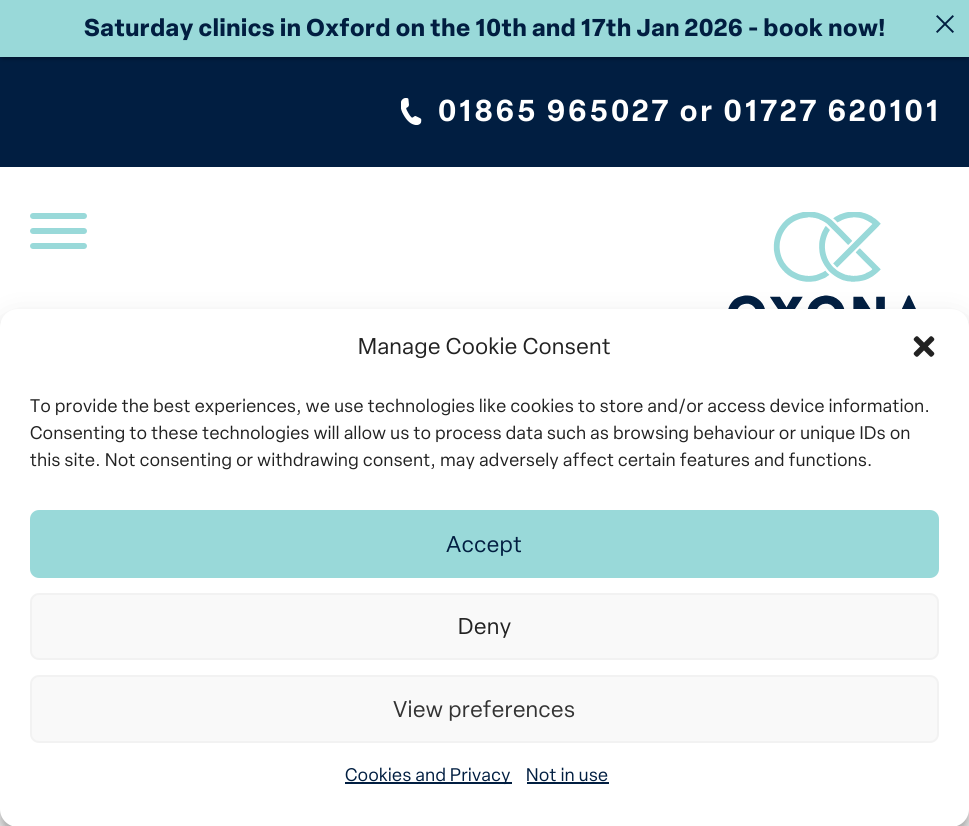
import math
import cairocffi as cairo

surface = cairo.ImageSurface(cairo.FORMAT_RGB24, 969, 826)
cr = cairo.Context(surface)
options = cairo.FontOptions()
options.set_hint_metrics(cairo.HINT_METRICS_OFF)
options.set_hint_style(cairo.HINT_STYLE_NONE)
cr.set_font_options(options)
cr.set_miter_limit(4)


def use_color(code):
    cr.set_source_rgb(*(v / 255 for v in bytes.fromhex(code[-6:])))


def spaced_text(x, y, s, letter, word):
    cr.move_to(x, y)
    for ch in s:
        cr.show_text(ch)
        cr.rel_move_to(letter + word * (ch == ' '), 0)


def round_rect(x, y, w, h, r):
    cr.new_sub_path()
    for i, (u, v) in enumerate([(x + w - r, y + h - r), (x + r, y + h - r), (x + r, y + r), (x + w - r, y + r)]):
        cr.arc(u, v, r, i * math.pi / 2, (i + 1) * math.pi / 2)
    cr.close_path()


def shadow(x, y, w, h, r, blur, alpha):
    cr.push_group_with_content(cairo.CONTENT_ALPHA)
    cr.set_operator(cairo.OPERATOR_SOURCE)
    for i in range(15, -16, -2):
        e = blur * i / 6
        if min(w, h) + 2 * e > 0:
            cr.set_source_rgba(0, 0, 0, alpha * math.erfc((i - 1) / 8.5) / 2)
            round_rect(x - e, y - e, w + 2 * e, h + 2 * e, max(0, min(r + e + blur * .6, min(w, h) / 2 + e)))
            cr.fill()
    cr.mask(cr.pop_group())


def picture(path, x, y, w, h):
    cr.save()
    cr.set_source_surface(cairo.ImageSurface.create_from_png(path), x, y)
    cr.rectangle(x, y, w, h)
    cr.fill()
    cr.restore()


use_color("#ffffff")
cr.paint()
use_color("#011e41")
cr.rectangle(0, 57, 969, 110)
cr.fill()
use_color("#000000")
shadow(3, 6, 963, 51, 0, 3, 0.5)
use_color("#99d9d9")
cr.rectangle(0, 0, 969, 57)
cr.fill()
cr.select_font_face("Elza", cairo.FONT_SLANT_NORMAL, cairo.FONT_WEIGHT_BOLD)
cr.set_font_size(24)
use_color("#011e41")
spaced_text(84, 36, "Saturday clinics in Oxford on the 10th and 17th Jan 2026 - book now!", 0.62, 0)
picture("img1.png", 936, 15, 18, 18)
picture("img2.png", 401, 98, 21, 27)
cr.select_font_face("Elza SemiBold")
cr.set_font_size(29.75)
use_color("#ffffff")
spaced_text(438, 121, "01865 965027 or 01727 620101", 3.05, 0)
use_color("#99d9d9")
round_rect(30, 213, 57, 6, 3)
cr.fill()
round_rect(30, 228, 57, 6, 3)
cr.fill()
round_rect(30, 243, 57, 6, 3)
cr.fill()
picture("img3.png", 728, 212, 188, 97)
use_color("#000000")
shadow(0, 318, 969, 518, 18, 4.5, 0.23)
shadow(0, 324, 969, 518, 18, 15, 0.19)
use_color("#ffffff")
round_rect(0, 309, 969, 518, 18)
cr.fill()
cr.select_font_face("Elza")
cr.set_font_size(22.5)
use_color("#222222")
spaced_text(358, 354, "Manage Cookie Consent", 0.6, 0)
picture("img4.png", 913, 336, 22, 21)
cr.set_font_size(18)
spaced_text(30, 412, "To provide the best experiences, we use technologies like cookies to store and/or access device information.", 0.46, 0)
spaced_text(30, 439, "Consenting to these technologies will allow us to process data such as browsing behaviour or unique IDs on", 0.46, 0)
spaced_text(30, 466, "this site. Not consenting or withdrawing consent, may adversely affect certain features and functions.", 0.46, 0)
use_color("#99d9d9")
round_rect(31, 511, 907, 66, 8)
cr.fill_preserve()
cr.stroke()
cr.set_font_size(22.5)
use_color("#011e41")
spaced_text(446, 552, "Accept", 0.6, 0)
use_color("#f9f9f9")
round_rect(31, 594, 907, 65, 8)
cr.fill_preserve()
use_color("#f2f2f2")
cr.stroke()
use_color("#222222")
spaced_text(458, 634, "Deny", 0.6, 0)
use_color("#f9f9f9")
round_rect(31, 676, 907, 66, 8)
cr.fill_preserve()
use_color("#f2f2f2")
cr.stroke()
use_color("#333333")
spaced_text(393, 717, "View preferences", 0.6, 0)
use_color("#011e41")
cr.rectangle(345, 782, 167, 2)
cr.fill()
cr.set_font_size(18)
spaced_text(345, 781, "Cookies and Privacy", 0.46, 0)
spaced_text(526, 781, "Not in use", 0.46, 0)
cr.rectangle(527, 782, 82, 2)
cr.fill()
surface.write_to_png("result.png")
